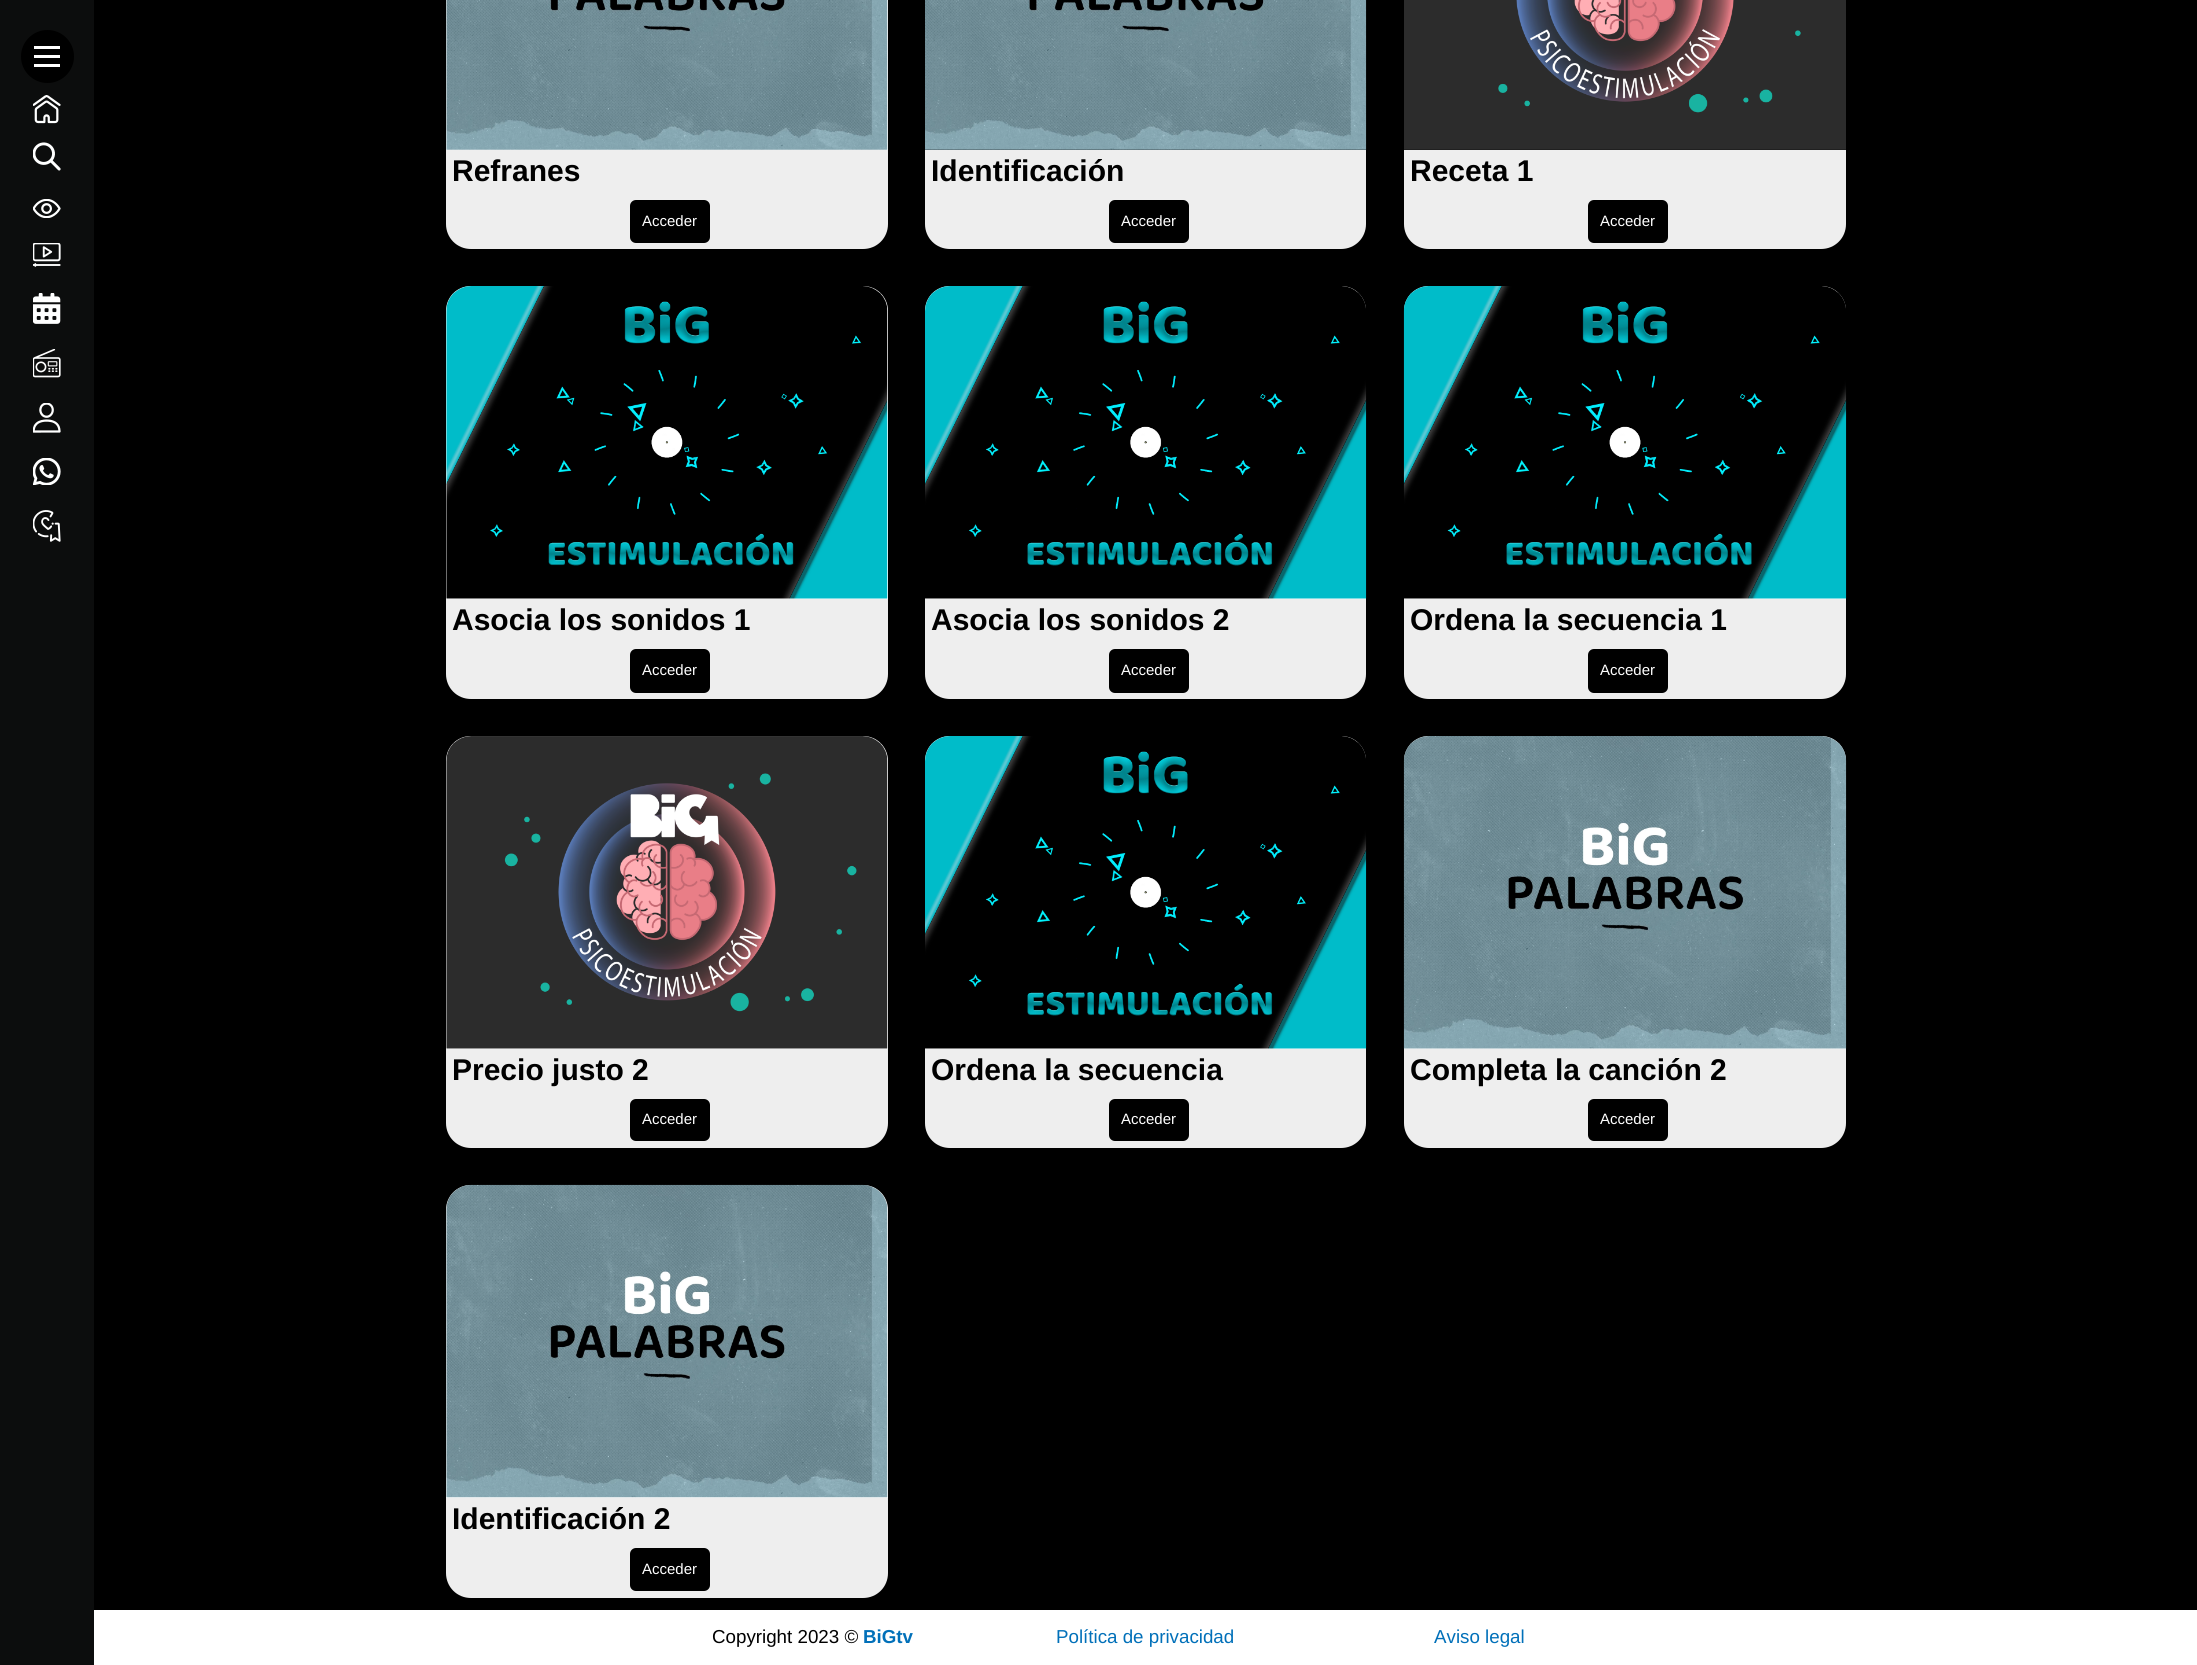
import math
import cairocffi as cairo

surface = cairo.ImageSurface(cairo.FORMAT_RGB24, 2197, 1665)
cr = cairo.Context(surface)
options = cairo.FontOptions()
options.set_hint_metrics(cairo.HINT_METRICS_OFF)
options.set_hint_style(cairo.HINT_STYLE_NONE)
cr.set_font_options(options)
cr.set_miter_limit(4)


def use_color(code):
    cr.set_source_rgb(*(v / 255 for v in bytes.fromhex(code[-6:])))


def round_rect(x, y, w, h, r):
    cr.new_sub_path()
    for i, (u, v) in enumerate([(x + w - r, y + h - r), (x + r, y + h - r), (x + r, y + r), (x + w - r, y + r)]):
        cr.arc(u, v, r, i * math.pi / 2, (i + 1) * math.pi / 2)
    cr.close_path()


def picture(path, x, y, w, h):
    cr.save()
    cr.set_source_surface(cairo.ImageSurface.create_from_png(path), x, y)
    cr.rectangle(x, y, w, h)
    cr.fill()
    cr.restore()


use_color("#000000")
cr.paint()
use_color("#0c0d0d")
cr.rectangle(0, 0, 94, 1665)
cr.fill()
use_color("#000000")
cr.arc(47.5, 56.5, 26.5, 0, 2 * math.pi)
cr.fill()
use_color("#ffffff")
cr.rectangle(34, 46, 26, 3)
cr.fill()
cr.rectangle(34, 55, 26, 3)
cr.fill()
cr.rectangle(34, 64, 26, 3)
cr.fill()
picture("img1.png", 33, 95, 28, 29)
picture("img2.png", 33, 142, 28, 29)
picture("img3.png", 33, 199, 28, 19)
picture("img4.png", 33, 243, 28, 24)
picture("img5.png", 33, 293, 28, 31)
picture("img6.png", 33, 349, 28, 29)
picture("img7.png", 33, 403, 28, 30)
picture("img8.png", 33, 458, 28, 27)
picture("img9.png", 33, 510, 28, 32)
cr.rectangle(446, 0, 442, 150)
cr.fill()
picture("img10.png", 446, 0, 442, 150)
use_color("#eeeeee")
cr.new_path()
cr.move_to(446, 150)
cr.line_to(888, 150)
cr.line_to(888, 224)
cr.curve_to(888, 238, 877, 249, 863, 249)
cr.line_to(471, 249)
cr.curve_to(457, 249, 446, 238, 446, 224)
cr.close_path()
cr.fill()
cr.select_font_face("Liberation Sans", cairo.FONT_SLANT_NORMAL, cairo.FONT_WEIGHT_BOLD)
cr.set_font_size(30)
use_color("#000000")
cr.move_to(452, 181)
cr.show_text("Refranes")
round_rect(630, 200, 80, 43, 6)
cr.fill()
cr.select_font_face("Liberation Sans")
cr.set_font_size(15)
use_color("#ffffff")
cr.move_to(642, 226)
cr.show_text("Acceder")
picture("img11.png", 925, 0, 442, 150)
use_color("#eeeeee")
cr.new_path()
cr.move_to(925, 150)
cr.line_to(1366, 150)
cr.line_to(1366, 224)
cr.curve_to(1366, 238, 1355, 249, 1341, 249)
cr.line_to(950, 249)
cr.curve_to(936, 249, 925, 238, 925, 224)
cr.close_path()
cr.fill()
cr.select_font_face("Liberation Sans", cairo.FONT_SLANT_NORMAL, cairo.FONT_WEIGHT_BOLD)
cr.set_font_size(30)
use_color("#000000")
cr.move_to(931, 181)
cr.show_text("Identificación")
round_rect(1109, 200, 80, 43, 6)
cr.fill()
cr.select_font_face("Liberation Sans")
cr.set_font_size(15)
use_color("#ffffff")
cr.move_to(1121, 226)
cr.show_text("Acceder")
picture("img12.png", 1404, 0, 442, 150)
use_color("#eeeeee")
cr.new_path()
cr.move_to(1404, 150)
cr.line_to(1846, 150)
cr.line_to(1846, 224)
cr.curve_to(1846, 238, 1835, 249, 1821, 249)
cr.line_to(1429, 249)
cr.curve_to(1415, 249, 1404, 238, 1404, 224)
cr.close_path()
cr.fill()
cr.select_font_face("Liberation Sans", cairo.FONT_SLANT_NORMAL, cairo.FONT_WEIGHT_BOLD)
cr.set_font_size(30)
use_color("#000000")
cr.move_to(1410, 181)
cr.show_text("Receta 1")
round_rect(1588, 200, 80, 43, 6)
cr.fill()
cr.select_font_face("Liberation Sans")
cr.set_font_size(15)
use_color("#ffffff")
cr.move_to(1600, 226)
cr.show_text("Acceder")
cr.new_path()
cr.move_to(471, 286)
cr.line_to(863, 286)
cr.curve_to(877, 286, 888, 297, 888, 311)
cr.line_to(888, 599)
cr.line_to(446, 599)
cr.line_to(446, 311)
cr.curve_to(446, 297, 457, 286, 471, 286)
cr.close_path()
cr.fill()
picture("img13.png", 446, 286, 442, 313)
use_color("#eeeeee")
cr.new_path()
cr.move_to(446, 599)
cr.line_to(888, 599)
cr.line_to(888, 674)
cr.curve_to(888, 688, 877, 699, 863, 699)
cr.line_to(471, 699)
cr.curve_to(457, 699, 446, 688, 446, 674)
cr.close_path()
cr.fill()
cr.select_font_face("Liberation Sans", cairo.FONT_SLANT_NORMAL, cairo.FONT_WEIGHT_BOLD)
cr.set_font_size(30)
use_color("#000000")
cr.move_to(452, 630)
cr.show_text("Asocia los sonidos 1")
round_rect(630, 649, 80, 44, 6)
cr.fill()
cr.select_font_face("Liberation Sans")
cr.set_font_size(15)
use_color("#ffffff")
cr.move_to(642, 675)
cr.show_text("Acceder")
cr.new_path()
cr.move_to(950, 286)
cr.line_to(1341, 286)
cr.curve_to(1355, 286, 1366, 297, 1366, 311)
cr.line_to(1366, 599)
cr.line_to(925, 599)
cr.line_to(925, 311)
cr.curve_to(925, 297, 936, 286, 950, 286)
cr.close_path()
cr.fill()
picture("img14.png", 925, 286, 442, 313)
use_color("#eeeeee")
cr.new_path()
cr.move_to(925, 599)
cr.line_to(1366, 599)
cr.line_to(1366, 674)
cr.curve_to(1366, 688, 1355, 699, 1341, 699)
cr.line_to(950, 699)
cr.curve_to(936, 699, 925, 688, 925, 674)
cr.close_path()
cr.fill()
cr.select_font_face("Liberation Sans", cairo.FONT_SLANT_NORMAL, cairo.FONT_WEIGHT_BOLD)
cr.set_font_size(30)
use_color("#000000")
cr.move_to(931, 630)
cr.show_text("Asocia los sonidos 2")
round_rect(1109, 649, 80, 44, 6)
cr.fill()
cr.select_font_face("Liberation Sans")
cr.set_font_size(15)
use_color("#ffffff")
cr.move_to(1121, 675)
cr.show_text("Acceder")
cr.new_path()
cr.move_to(1429, 286)
cr.line_to(1821, 286)
cr.curve_to(1835, 286, 1846, 297, 1846, 311)
cr.line_to(1846, 599)
cr.line_to(1404, 599)
cr.line_to(1404, 311)
cr.curve_to(1404, 297, 1415, 286, 1429, 286)
cr.close_path()
cr.fill()
picture("img15.png", 1403, 286, 444, 313)
use_color("#eeeeee")
cr.new_path()
cr.move_to(1404, 599)
cr.line_to(1846, 599)
cr.line_to(1846, 674)
cr.curve_to(1846, 688, 1835, 699, 1821, 699)
cr.line_to(1429, 699)
cr.curve_to(1415, 699, 1404, 688, 1404, 674)
cr.close_path()
cr.fill()
cr.select_font_face("Liberation Sans", cairo.FONT_SLANT_NORMAL, cairo.FONT_WEIGHT_BOLD)
cr.set_font_size(30)
use_color("#000000")
cr.move_to(1410, 630)
cr.show_text("Ordena la secuencia 1")
round_rect(1588, 649, 80, 44, 6)
cr.fill()
cr.select_font_face("Liberation Sans")
cr.set_font_size(15)
use_color("#ffffff")
cr.move_to(1600, 675)
cr.show_text("Acceder")
cr.new_path()
cr.move_to(471, 736)
cr.line_to(863, 736)
cr.curve_to(877, 736, 888, 747, 888, 761)
cr.line_to(888, 1049)
cr.line_to(446, 1049)
cr.line_to(446, 761)
cr.curve_to(446, 747, 457, 736, 471, 736)
cr.close_path()
cr.fill()
picture("img16.png", 446, 736, 442, 313)
use_color("#eeeeee")
cr.new_path()
cr.move_to(446, 1049)
cr.line_to(888, 1049)
cr.line_to(888, 1123)
cr.curve_to(888, 1137, 877, 1148, 863, 1148)
cr.line_to(471, 1148)
cr.curve_to(457, 1148, 446, 1137, 446, 1123)
cr.close_path()
cr.fill()
cr.select_font_face("Liberation Sans", cairo.FONT_SLANT_NORMAL, cairo.FONT_WEIGHT_BOLD)
cr.set_font_size(30)
use_color("#000000")
cr.move_to(452, 1080)
cr.show_text("Precio justo 2")
round_rect(630, 1099, 80, 42, 6)
cr.fill()
cr.select_font_face("Liberation Sans")
cr.set_font_size(15)
use_color("#ffffff")
cr.move_to(642, 1124)
cr.show_text("Acceder")
cr.new_path()
cr.move_to(950, 736)
cr.line_to(1341, 736)
cr.curve_to(1355, 736, 1366, 747, 1366, 761)
cr.line_to(1366, 1049)
cr.line_to(925, 1049)
cr.line_to(925, 761)
cr.curve_to(925, 747, 936, 736, 950, 736)
cr.close_path()
cr.fill()
picture("img17.png", 925, 736, 442, 313)
use_color("#eeeeee")
cr.new_path()
cr.move_to(925, 1049)
cr.line_to(1366, 1049)
cr.line_to(1366, 1123)
cr.curve_to(1366, 1137, 1355, 1148, 1341, 1148)
cr.line_to(950, 1148)
cr.curve_to(936, 1148, 925, 1137, 925, 1123)
cr.close_path()
cr.fill()
cr.select_font_face("Liberation Sans", cairo.FONT_SLANT_NORMAL, cairo.FONT_WEIGHT_BOLD)
cr.set_font_size(30)
use_color("#000000")
cr.move_to(931, 1080)
cr.show_text("Ordena la secuencia")
round_rect(1109, 1099, 80, 42, 6)
cr.fill()
cr.select_font_face("Liberation Sans")
cr.set_font_size(15)
use_color("#ffffff")
cr.move_to(1121, 1124)
cr.show_text("Acceder")
cr.new_path()
cr.move_to(1429, 736)
cr.line_to(1821, 736)
cr.curve_to(1835, 736, 1846, 747, 1846, 761)
cr.line_to(1846, 1049)
cr.line_to(1404, 1049)
cr.line_to(1404, 761)
cr.curve_to(1404, 747, 1415, 736, 1429, 736)
cr.close_path()
cr.fill()
picture("img18.png", 1403, 736, 444, 313)
use_color("#eeeeee")
cr.new_path()
cr.move_to(1404, 1049)
cr.line_to(1846, 1049)
cr.line_to(1846, 1123)
cr.curve_to(1846, 1137, 1835, 1148, 1821, 1148)
cr.line_to(1429, 1148)
cr.curve_to(1415, 1148, 1404, 1137, 1404, 1123)
cr.close_path()
cr.fill()
cr.select_font_face("Liberation Sans", cairo.FONT_SLANT_NORMAL, cairo.FONT_WEIGHT_BOLD)
cr.set_font_size(30)
use_color("#000000")
cr.move_to(1410, 1080)
cr.show_text("Completa la canción 2")
round_rect(1588, 1099, 80, 42, 6)
cr.fill()
cr.select_font_face("Liberation Sans")
cr.set_font_size(15)
use_color("#ffffff")
cr.move_to(1600, 1124)
cr.show_text("Acceder")
cr.new_path()
cr.move_to(471, 1185)
cr.line_to(863, 1185)
cr.curve_to(877, 1185, 888, 1196, 888, 1210)
cr.line_to(888, 1498)
cr.line_to(446, 1498)
cr.line_to(446, 1210)
cr.curve_to(446, 1196, 457, 1185, 471, 1185)
cr.close_path()
cr.fill()
picture("img19.png", 446, 1184, 442, 314)
use_color("#eeeeee")
cr.new_path()
cr.move_to(446, 1498)
cr.line_to(888, 1498)
cr.line_to(888, 1573)
cr.curve_to(888, 1587, 877, 1598, 863, 1598)
cr.line_to(471, 1598)
cr.curve_to(457, 1598, 446, 1587, 446, 1573)
cr.close_path()
cr.fill()
cr.select_font_face("Liberation Sans", cairo.FONT_SLANT_NORMAL, cairo.FONT_WEIGHT_BOLD)
cr.set_font_size(30)
use_color("#000000")
cr.move_to(452, 1529)
cr.show_text("Identificación 2")
round_rect(630, 1548, 80, 43, 6)
cr.fill()
cr.select_font_face("Liberation Sans")
cr.set_font_size(15)
use_color("#ffffff")
cr.move_to(642, 1574)
cr.show_text("Acceder")
cr.rectangle(94, 1610, 2103, 55)
cr.fill()
cr.set_font_size(18.75)
use_color("#000000")
cr.move_to(712, 1643)
cr.show_text("Copyright 2023 ©")
cr.select_font_face("Liberation Sans", cairo.FONT_SLANT_NORMAL, cairo.FONT_WEIGHT_BOLD)
use_color("#0170b9")
cr.move_to(863, 1643)
cr.show_text("BiGtv")
cr.select_font_face("Liberation Sans")
cr.move_to(1056, 1643)
cr.show_text("Política de privacidad")
cr.move_to(1434, 1643)
cr.show_text("Aviso legal")
surface.write_to_png("result.png")
